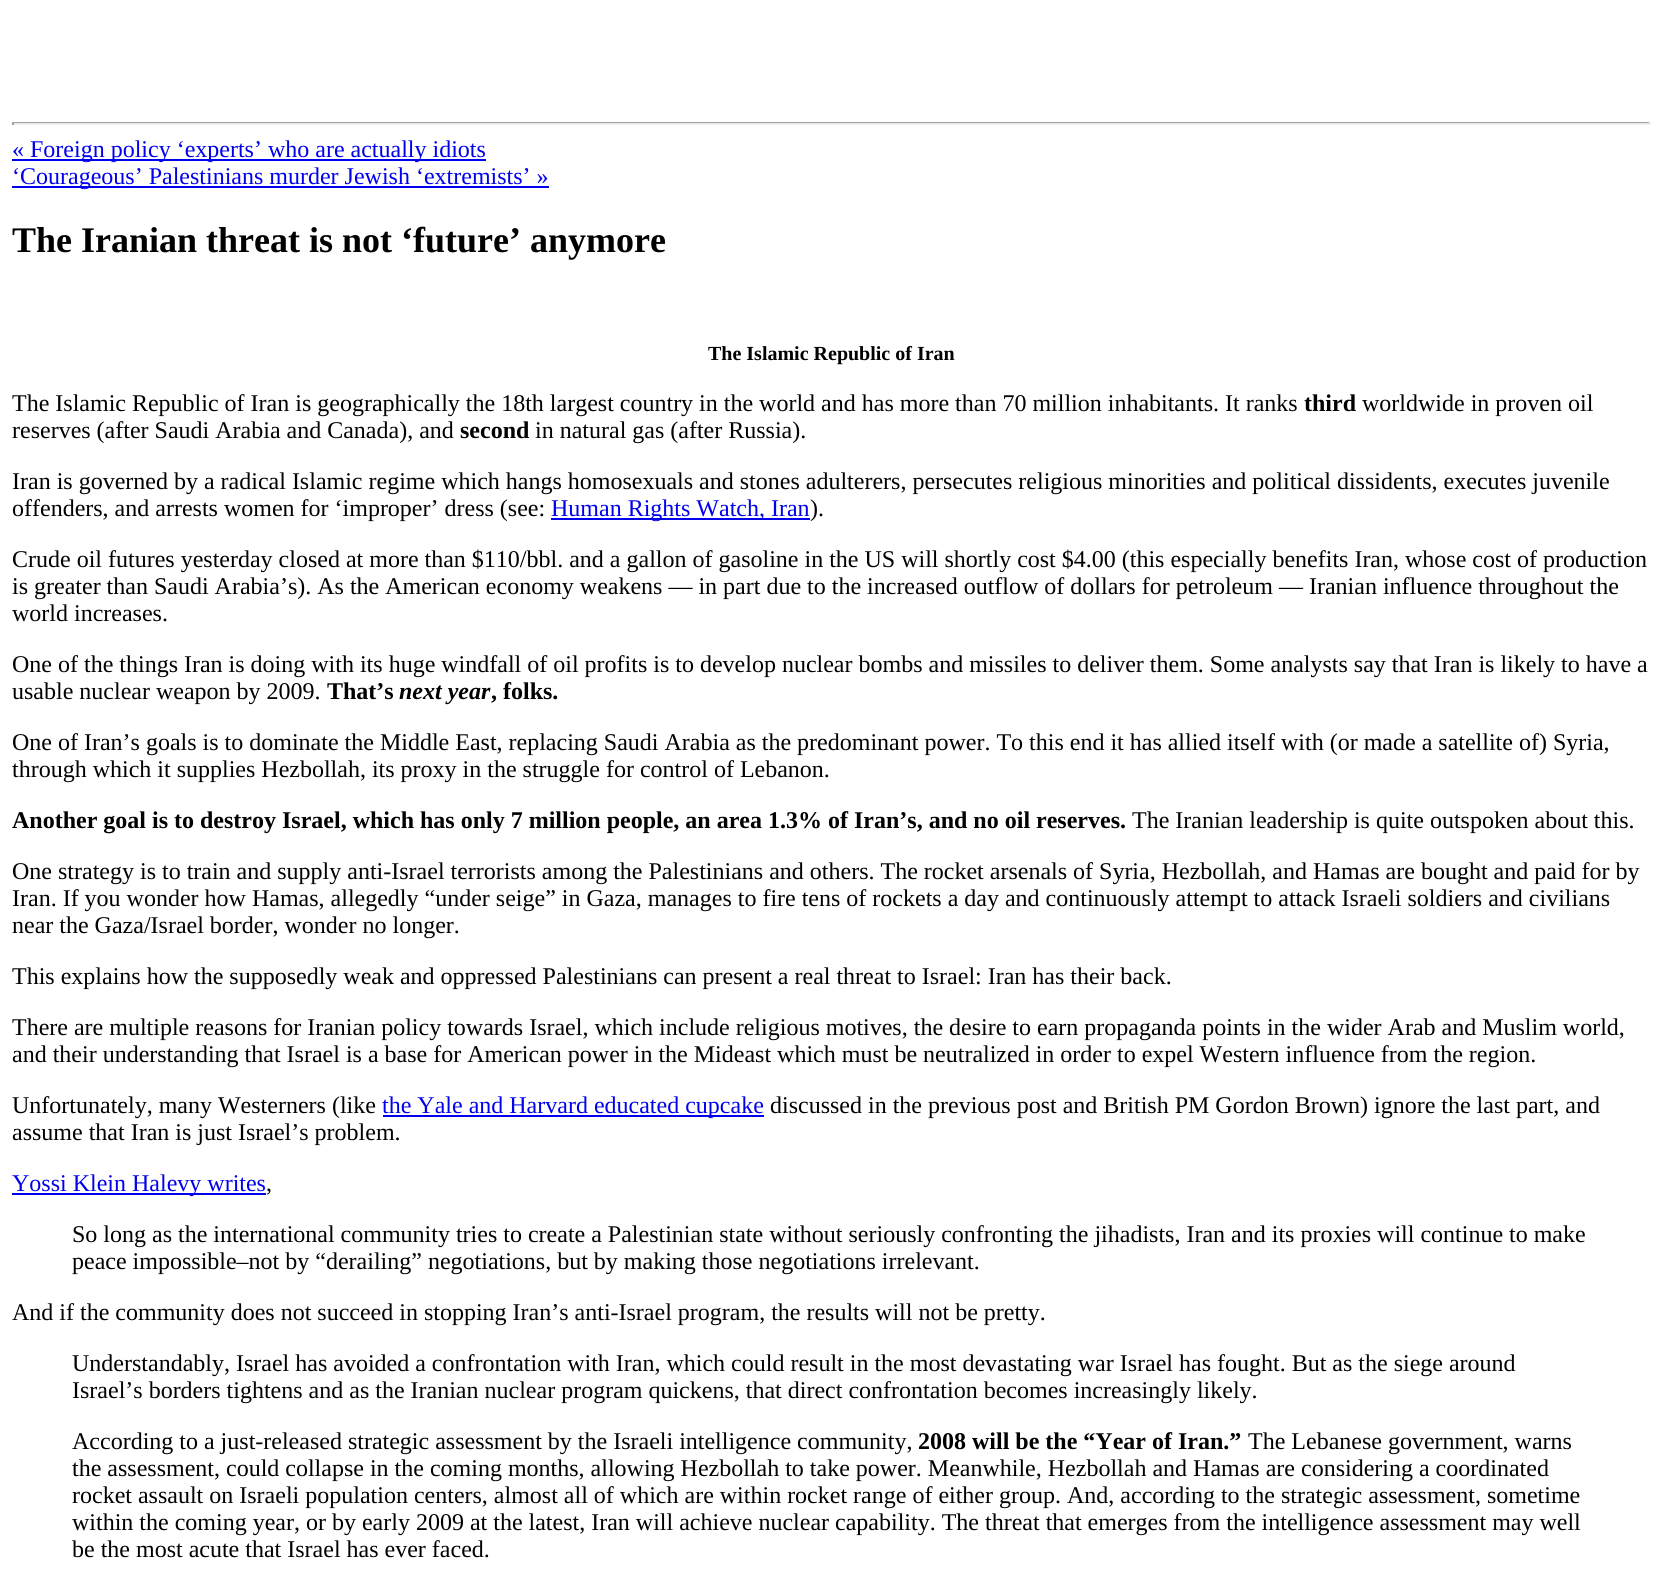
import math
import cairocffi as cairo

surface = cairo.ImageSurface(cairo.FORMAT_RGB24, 1662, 1572)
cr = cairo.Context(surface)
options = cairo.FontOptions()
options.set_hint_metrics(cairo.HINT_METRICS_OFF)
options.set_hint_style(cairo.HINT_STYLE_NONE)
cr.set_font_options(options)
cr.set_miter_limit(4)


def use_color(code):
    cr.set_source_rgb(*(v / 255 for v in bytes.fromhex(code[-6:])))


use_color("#ffffff")
cr.paint()
use_color("#9f9f9f")
cr.rectangle(12, 122, 1638, 1)
cr.fill()
use_color("#eeeeee")
cr.rectangle(1649, 122, 2, 3)
cr.fill()
cr.rectangle(12, 123, 1638, 2)
cr.fill()
use_color("#9f9f9f")
cr.rectangle(12, 122, 2, 3)
cr.fill()
use_color("#0000ee")
cr.rectangle(12, 159, 474, 2)
cr.fill()
cr.select_font_face("Liberation Serif")
cr.set_font_size(24)
cr.move_to(12, 157)
cr.show_text("« Foreign policy ‘experts’ who are actually idiots")
cr.rectangle(12, 186, 537, 2)
cr.fill()
cr.move_to(12, 184)
cr.show_text("‘Courageous’ Palestinians murder Jewish ‘extremists’ »")
cr.select_font_face("Liberation Serif", cairo.FONT_SLANT_NORMAL, cairo.FONT_WEIGHT_BOLD)
cr.set_font_size(36)
use_color("#000000")
cr.move_to(12, 252)
cr.show_text("The Iranian threat is not ‘future’ anymore")
cr.set_font_size(20)
cr.move_to(708, 360)
cr.show_text("The Islamic Republic of Iran")
cr.select_font_face("Liberation Serif")
cr.set_font_size(24)
cr.move_to(12, 411)
cr.show_text("The Islamic Republic of Iran is geographically the 18th largest country in the world and has more than 70 million inhabitants. It ranks")
cr.select_font_face("Liberation Serif", cairo.FONT_SLANT_NORMAL, cairo.FONT_WEIGHT_BOLD)
cr.move_to(1304, 411)
cr.show_text("third")
cr.select_font_face("Liberation Serif")
cr.move_to(1362, 411)
cr.show_text("worldwide in proven oil")
cr.move_to(12, 438)
cr.show_text("reserves (after Saudi Arabia and Canada), and")
cr.select_font_face("Liberation Serif", cairo.FONT_SLANT_NORMAL, cairo.FONT_WEIGHT_BOLD)
cr.move_to(460, 438)
cr.show_text("second")
cr.select_font_face("Liberation Serif")
cr.move_to(535, 438)
cr.show_text("in natural gas (after Russia).")
cr.move_to(12, 489)
cr.show_text("Iran is governed by a radical Islamic regime which hangs homosexuals and stones adulterers, persecutes religious minorities and political dissidents, executes juvenile")
cr.move_to(12, 516)
cr.show_text("offenders, and arrests women for ‘improper’ dress (see:")
use_color("#0000ee")
cr.rectangle(551, 518, 259, 2)
cr.fill()
cr.move_to(551, 516)
cr.show_text("Human Rights Watch, Iran")
use_color("#000000")
cr.move_to(810, 516)
cr.show_text(").")
cr.move_to(12, 567)
cr.show_text("Crude oil futures yesterday closed at more than $110/bbl. and a gallon of gasoline in the US will shortly cost $4.00 (this especially benefits Iran, whose cost of production")
cr.move_to(12, 594)
cr.show_text("is greater than Saudi Arabia’s). As the American economy weakens — in part due to the increased outflow of dollars for petroleum — Iranian influence throughout the")
cr.move_to(12, 621)
cr.show_text("world increases.")
cr.move_to(12, 672)
cr.show_text("One of the things Iran is doing with its huge windfall of oil profits is to develop nuclear bombs and missiles to deliver them. Some analysts say that Iran is likely to have a")
cr.move_to(12, 699)
cr.show_text("usable nuclear weapon by 2009.")
cr.select_font_face("Liberation Serif", cairo.FONT_SLANT_NORMAL, cairo.FONT_WEIGHT_BOLD)
cr.move_to(327, 699)
cr.show_text("That’s")
cr.select_font_face("Liberation Serif", cairo.FONT_SLANT_ITALIC, cairo.FONT_WEIGHT_BOLD)
cr.move_to(399, 699)
cr.show_text("next year")
cr.select_font_face("Liberation Serif", cairo.FONT_SLANT_NORMAL, cairo.FONT_WEIGHT_BOLD)
cr.move_to(491, 699)
cr.show_text(", folks.")
cr.select_font_face("Liberation Serif")
cr.move_to(12, 750)
cr.show_text("One of Iran’s goals is to dominate the Middle East, replacing Saudi Arabia as the predominant power. To this end it has allied itself with (or made a satellite of) Syria,")
cr.move_to(12, 777)
cr.show_text("through which it supplies Hezbollah, its proxy in the struggle for control of Lebanon.")
cr.select_font_face("Liberation Serif", cairo.FONT_SLANT_NORMAL, cairo.FONT_WEIGHT_BOLD)
cr.move_to(12, 828)
cr.show_text("Another goal is to destroy Israel, which has only 7 million people, an area 1.3% of Iran’s, and no oil reserves.")
cr.select_font_face("Liberation Serif")
cr.move_to(1132, 828)
cr.show_text("The Iranian leadership is quite outspoken about this.")
cr.move_to(12, 879)
cr.show_text("One strategy is to train and supply anti-Israel terrorists among the Palestinians and others. The rocket arsenals of Syria, Hezbollah, and Hamas are bought and paid for by")
cr.move_to(12, 906)
cr.show_text("Iran. If you wonder how Hamas, allegedly “under seige” in Gaza, manages to fire tens of rockets a day and continuously attempt to attack Israeli soldiers and civilians")
cr.move_to(12, 933)
cr.show_text("near the Gaza/Israel border, wonder no longer.")
cr.move_to(12, 984)
cr.show_text("This explains how the supposedly weak and oppressed Palestinians can present a real threat to Israel: Iran has their back.")
cr.move_to(12, 1035)
cr.show_text("There are multiple reasons for Iranian policy towards Israel, which include religious motives, the desire to earn propaganda points in the wider Arab and Muslim world,")
cr.move_to(12, 1062)
cr.show_text("and their understanding that Israel is a base for American power in the Mideast which must be neutralized in order to expel Western influence from the region.")
cr.move_to(12, 1113)
cr.show_text("Unfortunately, many Westerners (like")
use_color("#0000ee")
cr.rectangle(383, 1115, 381, 2)
cr.fill()
cr.move_to(382, 1113)
cr.show_text("the Yale and Harvard educated cupcake")
use_color("#000000")
cr.move_to(770, 1113)
cr.show_text("discussed in the previous post and British PM Gordon Brown) ignore the last part, and")
cr.move_to(12, 1140)
cr.show_text("assume that Iran is just Israel’s problem.")
use_color("#0000ee")
cr.rectangle(12, 1193, 254, 2)
cr.fill()
cr.move_to(12, 1191)
cr.show_text("Yossi Klein Halevy writes")
use_color("#000000")
cr.move_to(266, 1191)
cr.show_text(",")
cr.move_to(72, 1242)
cr.show_text("So long as the international community tries to create a Palestinian state without seriously confronting the jihadists, Iran and its proxies will continue to make")
cr.move_to(72, 1269)
cr.show_text("peace impossible–not by “derailing” negotiations, but by making those negotiations irrelevant.")
cr.move_to(12, 1320)
cr.show_text("And if the community does not succeed in stopping Iran’s anti-Israel program, the results will not be pretty.")
cr.move_to(72, 1371)
cr.show_text("Understandably, Israel has avoided a confrontation with Iran, which could result in the most devastating war Israel has fought. But as the siege around")
cr.move_to(72, 1398)
cr.show_text("Israel’s borders tightens and as the Iranian nuclear program quickens, that direct confrontation becomes increasingly likely.")
cr.move_to(72, 1449)
cr.show_text("According to a just-released strategic assessment by the Israeli intelligence community,")
cr.select_font_face("Liberation Serif", cairo.FONT_SLANT_NORMAL, cairo.FONT_WEIGHT_BOLD)
cr.move_to(918, 1449)
cr.show_text("2008 will be the “Year of Iran.”")
cr.select_font_face("Liberation Serif")
cr.move_to(1248, 1449)
cr.show_text("The Lebanese government, warns")
cr.move_to(72, 1476)
cr.show_text("the assessment, could collapse in the coming months, allowing Hezbollah to take power. Meanwhile, Hezbollah and Hamas are considering a coordinated")
cr.move_to(72, 1503)
cr.show_text("rocket assault on Israeli population centers, almost all of which are within rocket range of either group. And, according to the strategic assessment, sometime")
cr.move_to(72, 1530)
cr.show_text("within the coming year, or by early 2009 at the latest, Iran will achieve nuclear capability. The threat that emerges from the intelligence assessment may well")
cr.move_to(72, 1557)
cr.show_text("be the most acute that Israel has ever faced.")
surface.write_to_png("result.png")
